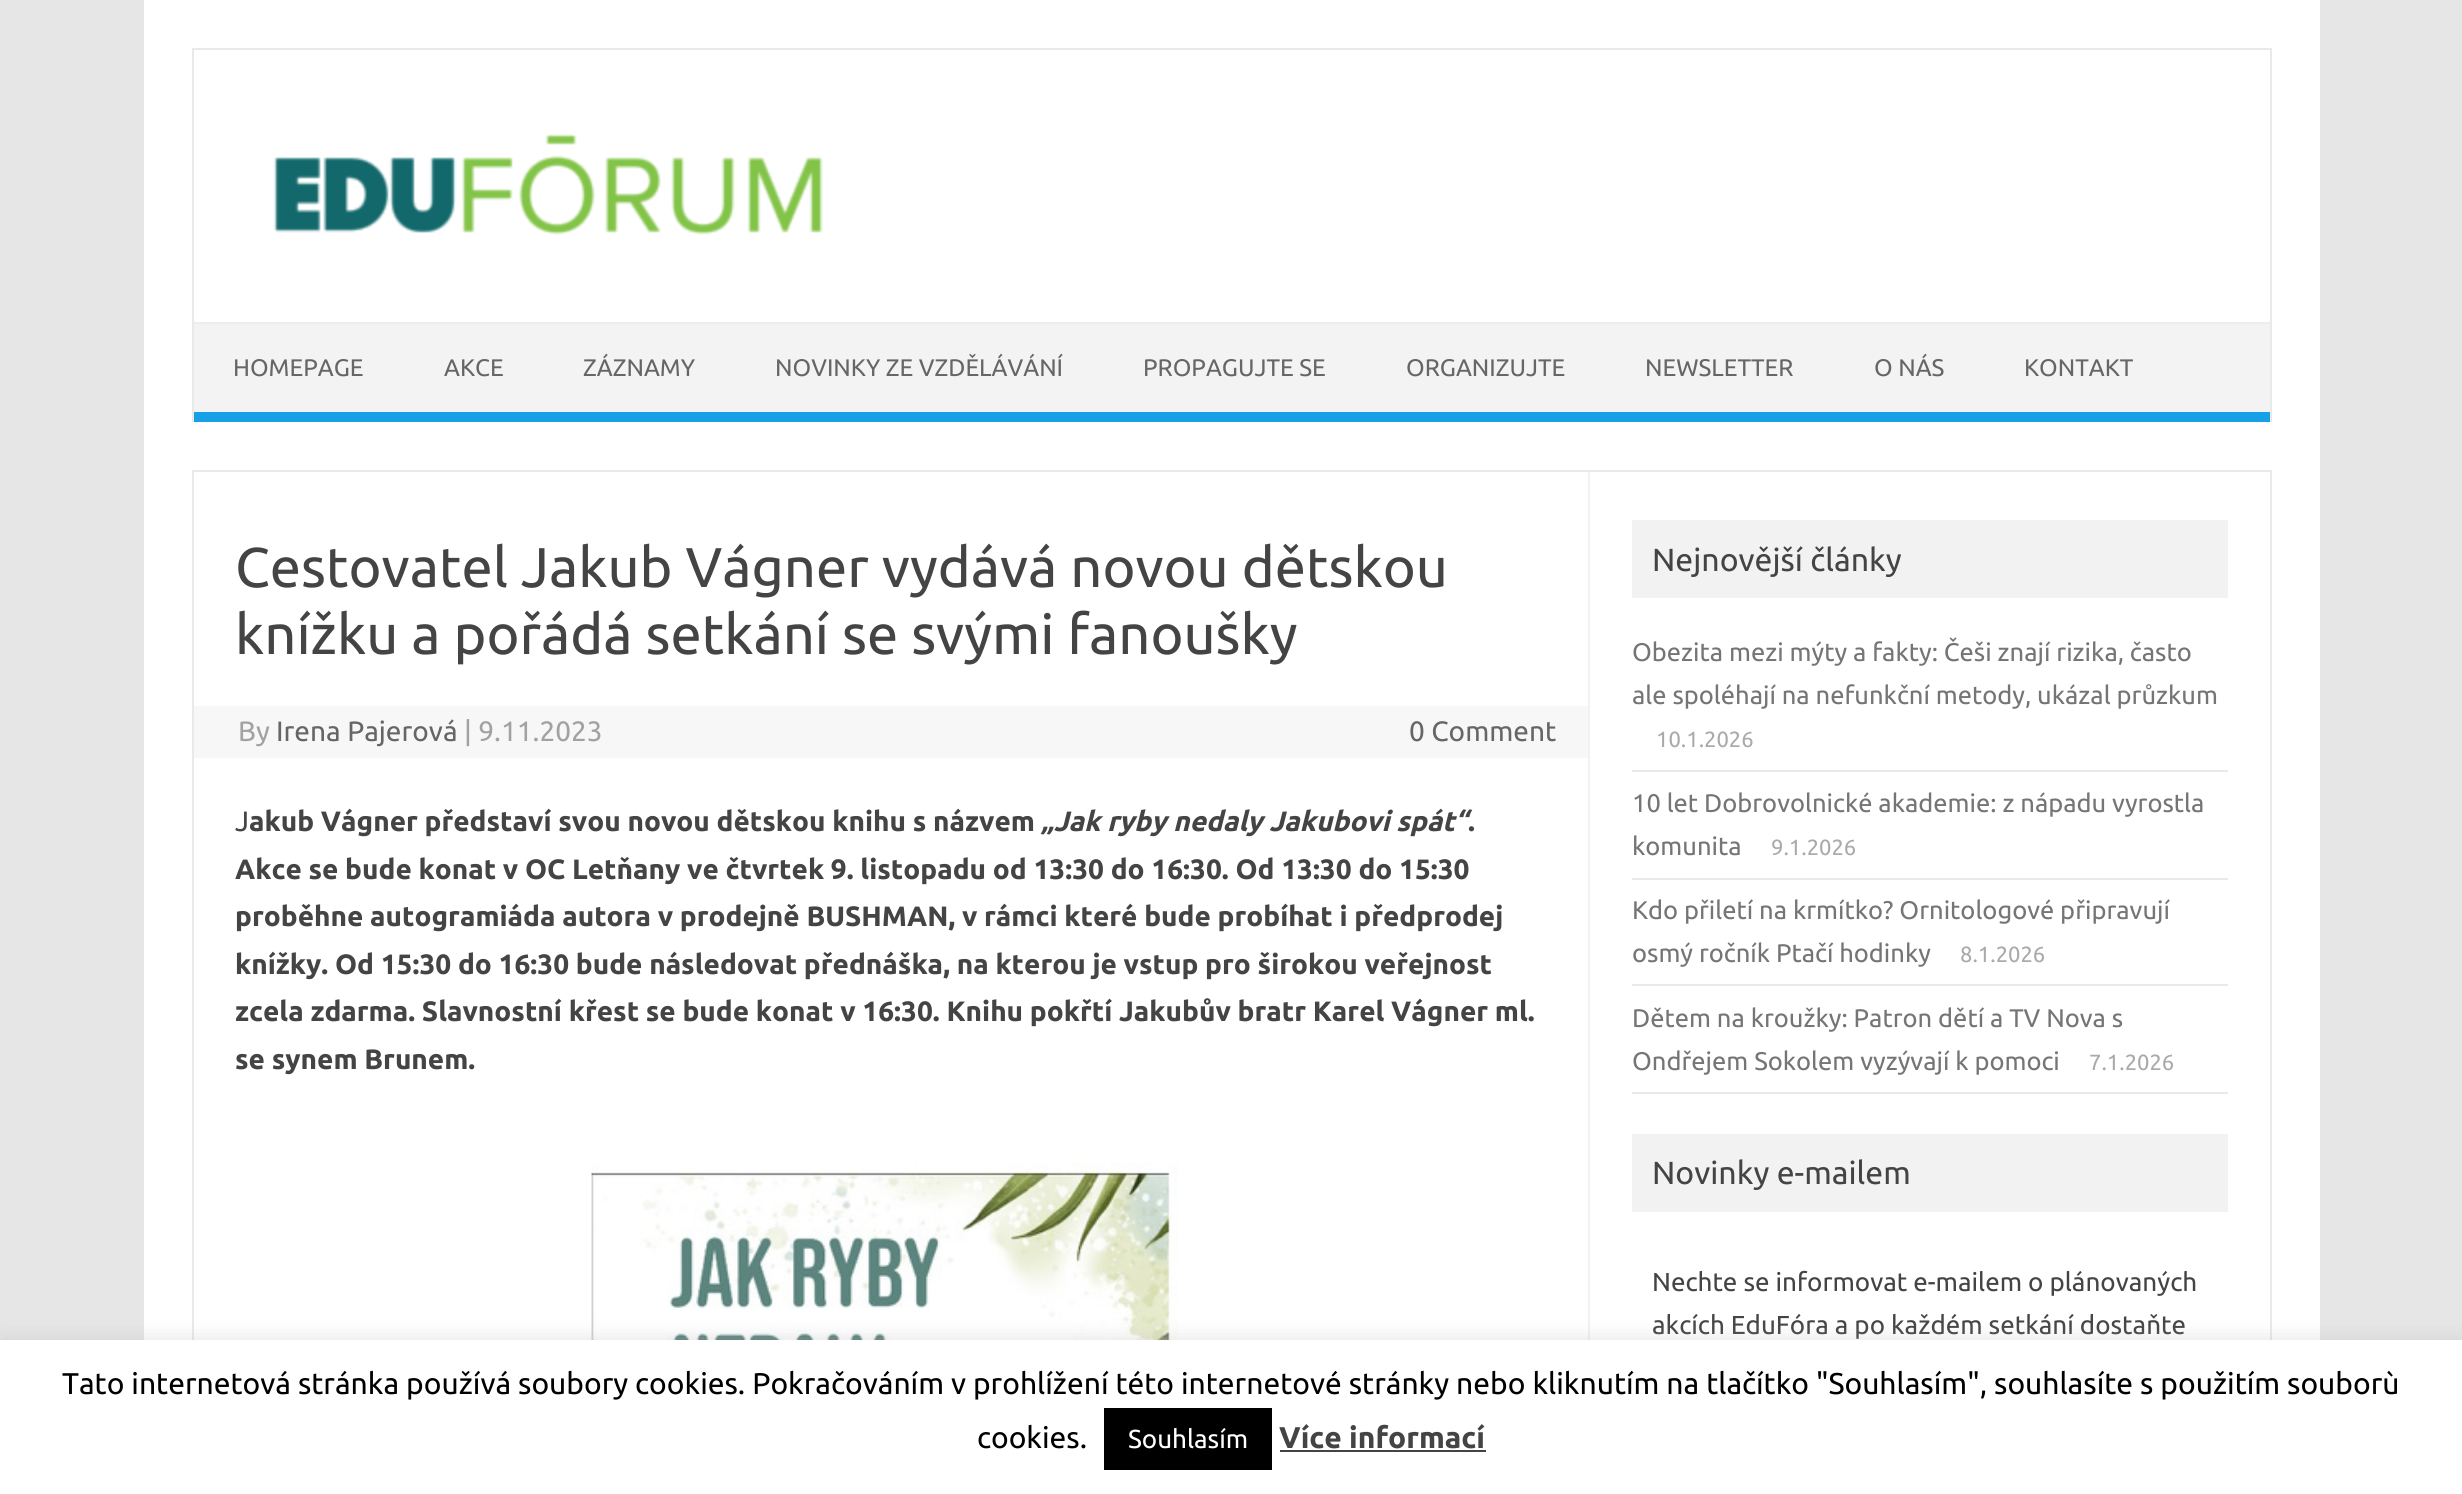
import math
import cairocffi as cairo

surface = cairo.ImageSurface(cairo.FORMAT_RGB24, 2462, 1494)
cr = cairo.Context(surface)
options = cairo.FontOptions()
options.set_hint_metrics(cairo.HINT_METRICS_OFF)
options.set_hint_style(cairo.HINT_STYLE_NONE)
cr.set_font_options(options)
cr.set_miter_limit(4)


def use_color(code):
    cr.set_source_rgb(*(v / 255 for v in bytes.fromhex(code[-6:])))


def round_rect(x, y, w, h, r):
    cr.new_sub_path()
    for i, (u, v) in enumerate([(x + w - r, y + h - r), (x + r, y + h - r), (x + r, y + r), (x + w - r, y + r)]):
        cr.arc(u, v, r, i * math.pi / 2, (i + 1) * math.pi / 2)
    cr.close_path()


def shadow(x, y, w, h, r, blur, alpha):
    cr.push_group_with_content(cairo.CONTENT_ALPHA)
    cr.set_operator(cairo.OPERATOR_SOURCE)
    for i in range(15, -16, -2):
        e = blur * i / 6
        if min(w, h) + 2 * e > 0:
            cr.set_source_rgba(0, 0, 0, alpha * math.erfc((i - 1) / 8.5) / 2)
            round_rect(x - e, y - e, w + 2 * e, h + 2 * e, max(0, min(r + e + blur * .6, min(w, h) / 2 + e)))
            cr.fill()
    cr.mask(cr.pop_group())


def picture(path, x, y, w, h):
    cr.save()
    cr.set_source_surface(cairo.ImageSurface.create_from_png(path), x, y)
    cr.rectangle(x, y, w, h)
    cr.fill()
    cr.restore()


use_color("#e6e6e6")
cr.paint()
use_color("#ffffff")
cr.rectangle(144, 0, 2176, 1340)
cr.fill()
use_color("#e9e9e9")
cr.rectangle(192, 48, 2080, 2)
cr.fill()
cr.rectangle(2270, 48, 2, 374)
cr.fill()
cr.rectangle(192, 48, 2, 374)
cr.fill()
picture("img1.png", 273, 133, 550, 102)
use_color("#f3f3f3")
cr.rectangle(194, 324, 2076, 88)
cr.fill()
use_color("#ededed")
cr.rectangle(194, 322, 2076, 2)
cr.fill()
use_color("#16a1e7")
cr.rectangle(194, 412, 2076, 10)
cr.fill()
cr.select_font_face("Ubuntu")
cr.set_font_size(24)
use_color("#666666")
cr.move_to(233, 376)
cr.show_text("HOMEPAGE")
cr.move_to(444, 376)
cr.show_text("AKCE")
cr.move_to(583, 376)
cr.show_text("ZÁZNAMY")
cr.move_to(775, 376)
cr.show_text("NOVINKY ZE VZDĚLÁVÁNÍ")
cr.move_to(1143, 376)
cr.show_text("PROPAGUJTE SE")
cr.move_to(1406, 376)
cr.show_text("ORGANIZUJTE")
cr.move_to(1645, 376)
cr.show_text("NEWSLETTER")
cr.move_to(1874, 376)
cr.show_text("O NÁS")
cr.move_to(2024, 376)
cr.show_text("KONTAKT")
cr.rectangle(193, 471, 2078, 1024)
use_color("#e9e9e9")
cr.stroke()
use_color("#f1f1f1")
cr.rectangle(1588, 472, 2, 868)
cr.fill()
cr.set_font_size(56)
use_color("#444444")
cr.move_to(235, 587)
cr.show_text("Cestovatel Jakub Vágner vydává novou dětskou")
cr.move_to(235, 654)
cr.show_text("knížku a pořádá setkání se svými fanoušky")
use_color("#f7f7f7")
cr.rectangle(194, 706, 1394, 52)
cr.fill()
cr.set_font_size(28)
use_color("#a2a2a2")
cr.move_to(238, 741)
cr.show_text("By")
use_color("#666666")
cr.move_to(276, 741)
cr.show_text("Irena Pajerová")
use_color("#a2a2a2")
cr.move_to(464, 741)
cr.show_text("| 9.11.2023")
use_color("#666666")
cr.move_to(1409, 741)
cr.show_text("0 Comment")
use_color("#444444")
cr.move_to(235, 831)
cr.show_text("J")
cr.select_font_face("Ubuntu", cairo.FONT_SLANT_NORMAL, cairo.FONT_WEIGHT_BOLD)
cr.move_to(249, 831)
cr.show_text("akub Vágner představí svou novou dětskou knihu s názvem")
cr.select_font_face("Ubuntu", cairo.FONT_SLANT_ITALIC, cairo.FONT_WEIGHT_BOLD)
cr.move_to(1041, 831)
cr.show_text("„Jak ryby nedaly Jakubovi spát“")
cr.select_font_face("Ubuntu", cairo.FONT_SLANT_NORMAL, cairo.FONT_WEIGHT_BOLD)
cr.move_to(1468, 831)
cr.show_text(".")
cr.move_to(235, 879)
cr.show_text("Akce se bude konat v OC Letňany ve čtvrtek 9. listopadu od 13:30 do 16:30. Od 13:30 do 15:30")
cr.move_to(235, 926)
cr.show_text("proběhne autogramiáda autora v prodejně BUSHMAN, v rámci které bude probíhat i předprodej")
cr.move_to(235, 974)
cr.show_text("knížky. Od 15:30 do 16:30 bude následovat přednáška, na kterou je vstup pro širokou veřejnost")
cr.move_to(235, 1021)
cr.show_text("zcela zdarma. Slavnostní křest se bude konat v 16:30. Knihu pokřtí Jakubův bratr Karel Vágner ml.")
cr.move_to(235, 1069)
cr.show_text("se synem Brunem.")
picture("img2.png", 591, 1161, 588, 179)
use_color("#f2f2f2")
cr.rectangle(1632, 520, 596, 78)
cr.fill()
cr.select_font_face("Ubuntu")
cr.set_font_size(32)
use_color("#444444")
cr.move_to(1652, 571)
cr.show_text("Nejnovější články")
use_color("#e9e9e9")
cr.rectangle(1632, 770, 596, 2)
cr.fill()
cr.set_font_size(25.5)
use_color("#757575")
cr.move_to(1632, 661)
cr.show_text("Obezita mezi mýty a fakty: Češi znají rizika, často")
cr.move_to(1632, 704)
cr.show_text("ale spoléhají na nefunkční metody, ukázal průzkum")
cr.set_font_size(22)
use_color("#aaaaaa")
cr.move_to(1656, 747)
cr.show_text("10.1.2026")
use_color("#e9e9e9")
cr.rectangle(1632, 878, 596, 2)
cr.fill()
cr.set_font_size(25.5)
use_color("#757575")
cr.move_to(1632, 812)
cr.show_text("10 let Dobrovolnické akademie: z nápadu vyrostla")
cr.move_to(1632, 855)
cr.show_text("komunita")
cr.set_font_size(22)
use_color("#aaaaaa")
cr.move_to(1771, 855)
cr.show_text("9.1.2026")
use_color("#e9e9e9")
cr.rectangle(1632, 984, 596, 2)
cr.fill()
cr.set_font_size(25.5)
use_color("#757575")
cr.move_to(1632, 919)
cr.show_text("Kdo přiletí na krmítko? Ornitologové připravují")
cr.move_to(1632, 962)
cr.show_text("osmý ročník Ptačí hodinky")
cr.set_font_size(22)
use_color("#aaaaaa")
cr.move_to(1960, 962)
cr.show_text("8.1.2026")
use_color("#e9e9e9")
cr.rectangle(1632, 1092, 596, 2)
cr.fill()
cr.set_font_size(25.5)
use_color("#757575")
cr.move_to(1632, 1027)
cr.show_text("Dětem na kroužky: Patron dětí a TV Nova s")
cr.move_to(1632, 1070)
cr.show_text("Ondřejem Sokolem vyzývají k pomoci")
cr.set_font_size(22)
use_color("#aaaaaa")
cr.move_to(2089, 1070)
cr.show_text("7.1.2026")
use_color("#f2f2f2")
cr.rectangle(1632, 1134, 596, 78)
cr.fill()
cr.set_font_size(32)
use_color("#444444")
cr.move_to(1652, 1184)
cr.show_text("Novinky e-mailem")
cr.set_font_size(26)
cr.move_to(1652, 1291)
cr.show_text("Nechte se informovat e-mailem o plánovaných")
cr.move_to(1652, 1334)
cr.show_text("akcích EduFóra a po každém setkání dostaňte")
use_color("#acabab")
shadow(0, 1338, 2462, 154, 0, 10, 0.3)
use_color("#ffffff")
cr.rectangle(0, 1340, 2462, 154)
cr.fill()
cr.set_font_size(30)
use_color("#000000")
cr.move_to(62, 1394)
cr.show_text("Tato internetová stránka používá soubory cookies. Pokračováním v prohlížení této internetové stránky nebo kliknutím na tlačítko \"Souhlasím\", souhlasíte s použitím souborù")
cr.move_to(977, 1448)
cr.show_text("cookies.")
cr.rectangle(1104, 1408, 168, 62)
cr.fill()
cr.set_font_size(26)
use_color("#ffffff")
cr.move_to(1128, 1448)
cr.show_text("Souhlasím")
cr.select_font_face("Ubuntu", cairo.FONT_SLANT_NORMAL, cairo.FONT_WEIGHT_BOLD)
cr.set_font_size(30)
use_color("#444444")
cr.move_to(1279, 1448)
cr.show_text("Více informací")
cr.rectangle(1280, 1450, 206, 2)
cr.fill()
surface.write_to_png("result.png")
